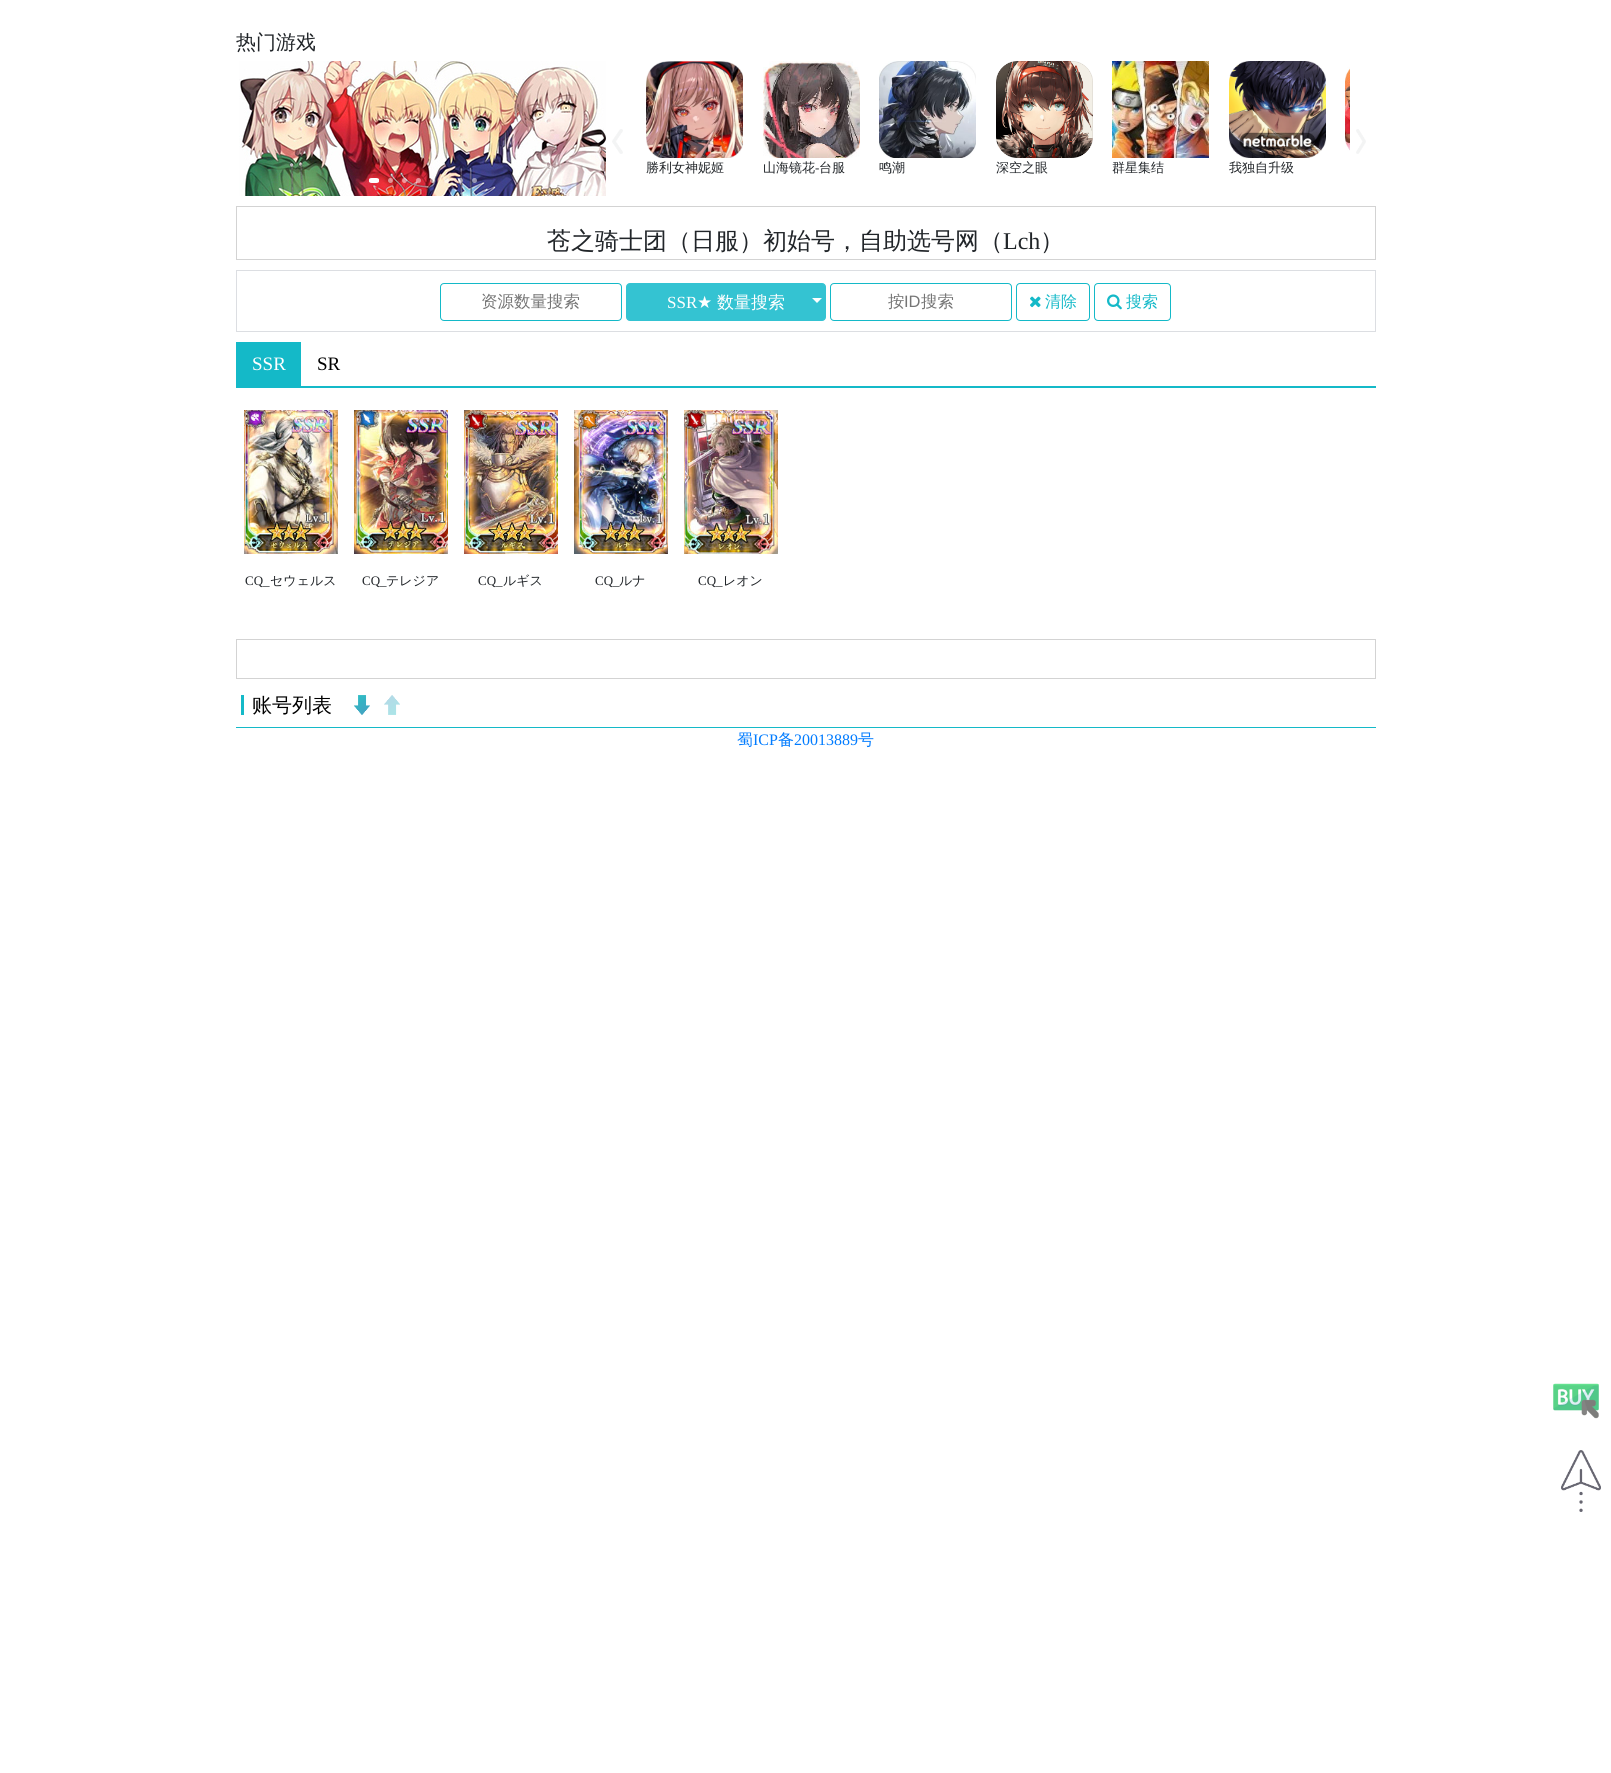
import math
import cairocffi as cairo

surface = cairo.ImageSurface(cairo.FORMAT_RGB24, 1611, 1773)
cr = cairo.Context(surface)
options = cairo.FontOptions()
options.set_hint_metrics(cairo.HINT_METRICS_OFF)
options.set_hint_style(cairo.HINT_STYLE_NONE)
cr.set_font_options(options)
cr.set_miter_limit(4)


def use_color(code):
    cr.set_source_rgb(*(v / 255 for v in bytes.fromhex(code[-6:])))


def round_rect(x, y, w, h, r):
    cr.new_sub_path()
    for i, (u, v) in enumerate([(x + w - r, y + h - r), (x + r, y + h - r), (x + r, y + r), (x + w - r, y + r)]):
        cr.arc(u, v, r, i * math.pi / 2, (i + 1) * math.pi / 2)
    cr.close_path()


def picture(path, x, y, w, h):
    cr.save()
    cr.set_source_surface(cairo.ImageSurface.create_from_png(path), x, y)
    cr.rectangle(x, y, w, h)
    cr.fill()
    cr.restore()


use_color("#ffffff")
cr.paint()
cr.select_font_face("WenQuanYi Zen Hei Medium")
cr.set_font_size(20)
use_color("#212529")
cr.move_to(236, 49)
cr.show_text("热门游戏")
picture("img1.png", 239, 61, 367, 135)
use_color("#ffffff")
cr.new_path()
cr.move_to(372, 178)
cr.line_to(376, 178)
cr.curve_to(377.5, 178, 379, 178.5, 379, 179.5)
cr.line_to(379, 181.5)
cr.curve_to(379, 182.5, 377.5, 183, 376, 183)
cr.line_to(372, 183)
cr.curve_to(370.5, 183, 369, 182.5, 369, 181.5)
cr.line_to(369, 179.5)
cr.curve_to(369, 178.5, 370.5, 178, 372, 178)
cr.close_path()
cr.fill()
cr.set_source_rgba(1, 1, 1, 0.5)
cr.arc(390.5, 180.5, 2.5, 0, 2 * math.pi)
cr.fill()
cr.arc(404.5, 180.5, 2.5, 0, 2 * math.pi)
cr.fill()
cr.arc(418.5, 180.5, 2.5, 0, 2 * math.pi)
cr.fill()
cr.arc(432.5, 180.5, 2.5, 0, 2 * math.pi)
cr.fill()
cr.arc(446.5, 180.5, 2.5, 0, 2 * math.pi)
cr.fill()
cr.arc(460.5, 180.5, 2.5, 0, 2 * math.pi)
cr.fill()
cr.arc(474.5, 180.5, 2.5, 0, 2 * math.pi)
cr.fill()
picture("img2.png", 612, 129, 11, 25)
picture("img3.png", 1356, 129, 10, 25)
picture("img4.png", 1345, 61, 5, 97)
picture("img5.png", 646, 61, 97, 97)
cr.set_font_size(13)
use_color("#212529")
cr.move_to(646, 172)
cr.show_text("勝利女神妮姬")
picture("img6.png", 763, 61, 97, 97)
cr.move_to(763, 172)
cr.show_text("山海镜花")
cr.select_font_face("Liberation Serif")
cr.move_to(815, 172)
cr.show_text("-")
cr.select_font_face("WenQuanYi Zen Hei Medium")
cr.move_to(819, 172)
cr.show_text("台服")
picture("img7.png", 879, 61, 97, 97)
cr.move_to(879, 172)
cr.show_text("鸣潮")
picture("img8.png", 996, 61, 97, 97)
cr.move_to(996, 172)
cr.show_text("深空之眼")
picture("img9.png", 1112, 61, 97, 97)
cr.move_to(1112, 172)
cr.show_text("群星集结")
picture("img10.png", 1229, 61, 97, 97)
cr.move_to(1229, 172)
cr.show_text("我独自升级")
cr.rectangle(236.5, 206.5, 1139, 53)
use_color("#d3d3d3")
cr.set_line_width(1)
cr.stroke()
cr.set_font_size(24)
use_color("#212529")
cr.move_to(547, 249)
cr.show_text("苍之骑士团（日服）初始号，自助选号网（")
cr.select_font_face("Liberation Serif")
cr.move_to(1003, 249)
cr.show_text("Lch")
cr.select_font_face("WenQuanYi Zen Hei Medium")
cr.move_to(1040, 249)
cr.show_text("）")
cr.rectangle(236.5, 270.5, 1139, 61)
use_color("#dcdee2")
cr.stroke()
round_rect(440.5, 283.5, 181, 37, 3.5)
use_color("#14b9c8")
cr.stroke()
cr.set_font_size(16.5)
use_color("#757575")
cr.move_to(481, 307)
cr.show_text("资源数量搜索")
use_color("#34c3d2")
round_rect(626.5, 283.5, 199, 37, 3.5)
cr.fill_preserve()
cr.stroke()
cr.select_font_face("Liberation Serif")
cr.set_font_size(17)
use_color("#ffffff")
cr.move_to(667, 308)
cr.show_text("SSR")
cr.select_font_face("DejaVu Sans")
cr.move_to(697, 308)
cr.show_text("★")
cr.select_font_face("WenQuanYi Zen Hei Medium")
cr.move_to(717, 308)
cr.show_text("数量搜索")
cr.new_path()
cr.move_to(812, 298)
cr.line_to(822, 298)
cr.line_to(817, 303)
cr.close_path()
cr.fill()
round_rect(830.5, 283.5, 181, 37, 3.5)
use_color("#14b9c8")
cr.stroke()
cr.set_font_size(16.5)
use_color("#757575")
cr.move_to(888, 307)
cr.show_text("按")
cr.select_font_face("Liberation Sans")
cr.move_to(904, 307)
cr.show_text("ID")
cr.select_font_face("WenQuanYi Zen Hei Medium")
cr.move_to(921, 307)
cr.show_text("搜索")
round_rect(1016.5, 283.5, 73, 37, 3.5)
use_color("#14b9c8")
cr.stroke()
picture("img11.png", 1030, 296, 11, 12)
cr.set_font_size(16)
cr.move_to(1045, 307)
cr.show_text("清除")
round_rect(1094.5, 283.5, 76, 37, 3.5)
cr.stroke()
picture("img12.png", 1107, 294, 15, 16)
cr.move_to(1126, 307)
cr.show_text("搜索")
cr.rectangle(236, 386, 1140, 2)
cr.fill()
cr.rectangle(236, 342, 65, 44)
cr.fill()
cr.select_font_face("Liberation Serif")
cr.set_font_size(19)
use_color("#ffffff")
cr.move_to(252, 370)
cr.show_text("SSR")
use_color("#000000")
cr.move_to(317, 370)
cr.show_text("SR")
picture("img13.png", 244, 410, 94, 144)
cr.set_font_size(13)
use_color("#212529")
cr.move_to(245, 585)
cr.show_text("CQ_")
cr.select_font_face("WenQuanYi Zen Hei Medium")
cr.move_to(270, 585)
cr.show_text("セウェルス")
picture("img14.png", 354, 410, 94, 144)
cr.select_font_face("Liberation Serif")
cr.move_to(362, 585)
cr.show_text("CQ_")
cr.select_font_face("WenQuanYi Zen Hei Medium")
cr.move_to(386, 585)
cr.show_text("テレジア")
picture("img15.png", 464, 410, 94, 144)
cr.select_font_face("Liberation Serif")
cr.move_to(478, 585)
cr.show_text("CQ_")
cr.select_font_face("WenQuanYi Zen Hei Medium")
cr.move_to(503, 585)
cr.show_text("ルギス")
picture("img16.png", 574, 410, 94, 144)
cr.select_font_face("Liberation Serif")
cr.move_to(595, 585)
cr.show_text("CQ_")
cr.select_font_face("WenQuanYi Zen Hei Medium")
cr.move_to(619, 585)
cr.show_text("ルナ")
picture("img17.png", 684, 410, 94, 144)
cr.select_font_face("Liberation Serif")
cr.move_to(698, 585)
cr.show_text("CQ_")
cr.select_font_face("WenQuanYi Zen Hei Medium")
cr.move_to(723, 585)
cr.show_text("レオン")
cr.rectangle(236.5, 639.5, 1139, 39)
use_color("#d3d3d3")
cr.stroke()
use_color("#14b9c8")
cr.rectangle(236, 727, 1140, 1)
cr.fill()
cr.rectangle(241, 695, 3, 20)
cr.fill()
cr.set_font_size(20)
use_color("#000000")
cr.move_to(252, 712)
cr.show_text("账号列表")
picture("img18.png", 354, 695, 16, 20)
picture("img19.png", 384, 695, 16, 20)
cr.set_font_size(16)
use_color("#007bff")
cr.move_to(737, 745)
cr.show_text("蜀")
cr.select_font_face("Liberation Serif")
cr.move_to(753, 745)
cr.show_text("ICP")
cr.select_font_face("WenQuanYi Zen Hei Medium")
cr.move_to(778, 745)
cr.show_text("备")
cr.select_font_face("Liberation Serif")
cr.move_to(794, 745)
cr.show_text("20013889")
cr.select_font_face("WenQuanYi Zen Hei Medium")
cr.move_to(858, 745)
cr.show_text("号")
picture("img20.png", 1553, 1383, 46, 36)
picture("img21.png", 1561, 1450, 40, 62)
surface.write_to_png("result.png")
